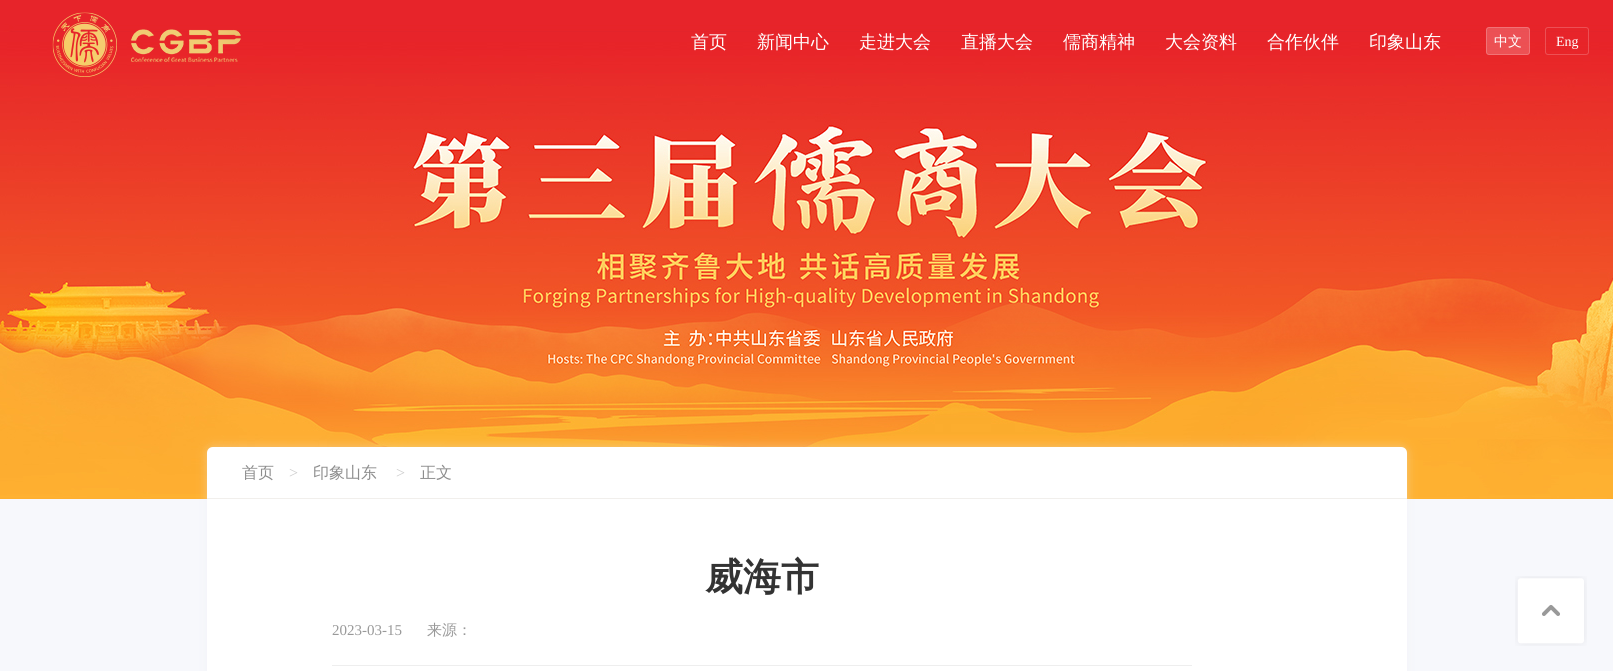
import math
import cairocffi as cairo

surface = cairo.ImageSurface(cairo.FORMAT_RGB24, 1613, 671)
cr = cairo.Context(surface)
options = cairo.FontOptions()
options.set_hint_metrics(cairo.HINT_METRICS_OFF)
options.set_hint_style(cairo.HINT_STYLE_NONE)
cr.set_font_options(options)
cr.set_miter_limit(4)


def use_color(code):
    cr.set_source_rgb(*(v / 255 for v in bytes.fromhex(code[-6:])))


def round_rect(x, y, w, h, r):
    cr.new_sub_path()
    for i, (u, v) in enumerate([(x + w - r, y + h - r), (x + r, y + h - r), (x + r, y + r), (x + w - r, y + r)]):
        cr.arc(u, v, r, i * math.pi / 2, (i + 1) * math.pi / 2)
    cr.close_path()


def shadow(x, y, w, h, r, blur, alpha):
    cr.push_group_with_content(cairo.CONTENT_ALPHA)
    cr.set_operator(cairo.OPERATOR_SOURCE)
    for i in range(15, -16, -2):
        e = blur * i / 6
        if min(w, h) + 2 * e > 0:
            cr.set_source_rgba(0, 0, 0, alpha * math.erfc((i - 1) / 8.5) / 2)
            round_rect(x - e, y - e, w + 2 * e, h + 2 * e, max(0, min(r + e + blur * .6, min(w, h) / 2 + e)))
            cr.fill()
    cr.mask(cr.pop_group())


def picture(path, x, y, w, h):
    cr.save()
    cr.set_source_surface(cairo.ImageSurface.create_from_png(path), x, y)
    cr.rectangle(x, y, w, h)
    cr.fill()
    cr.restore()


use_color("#f7f8fc")
cr.paint()
picture("img1.png", 0, 0, 1613, 499)
picture("img2.png", 52, 12, 189, 65)
cr.select_font_face("WenQuanYi Zen Hei Medium")
cr.set_font_size(18)
use_color("#ffffff")
cr.move_to(691, 48)
cr.show_text("首页")
cr.move_to(757, 48)
cr.show_text("新闻中心")
cr.move_to(859, 48)
cr.show_text("走进大会")
cr.move_to(961, 48)
cr.show_text("直播大会")
cr.move_to(1063, 48)
cr.show_text("儒商精神")
cr.move_to(1165, 48)
cr.show_text("大会资料")
cr.move_to(1267, 48)
cr.show_text("合作伙伴")
cr.move_to(1369, 48)
cr.show_text("印象山东")
cr.set_source_rgba(1, 1, 1, 0.2)
round_rect(1486, 27, 44, 28, 3)
cr.fill()
round_rect(1486.5, 27.5, 43, 27, 2.5)
cr.set_line_width(1)
cr.stroke()
cr.set_font_size(14)
use_color("#ffffff")
cr.move_to(1494, 46)
cr.show_text("中文")
round_rect(1545.5, 27.5, 43, 27, 2.5)
cr.set_source_rgba(1, 1, 1, 0.2)
cr.stroke()
cr.select_font_face("Liberation Serif")
use_color("#ffffff")
cr.move_to(1556, 46)
cr.show_text("Eng")
use_color("#eaebef")
shadow(207, 447, 1200, 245, 6, 5, 0.4)
use_color("#ffffff")
cr.new_path()
cr.move_to(213, 447)
cr.line_to(1401, 447)
cr.curve_to(1404.5, 447, 1407, 449.5, 1407, 453)
cr.line_to(1407, 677)
cr.line_to(207, 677)
cr.line_to(207, 453)
cr.curve_to(207, 449.5, 209.5, 447, 213, 447)
cr.close_path()
cr.fill()
use_color("#f1efec")
cr.rectangle(207, 498, 1200, 1)
cr.fill()
cr.select_font_face("WenQuanYi Zen Hei Medium")
cr.set_font_size(16)
use_color("#8d8d8d")
cr.move_to(242, 478)
cr.show_text("首页")
cr.select_font_face("Liberation Serif")
use_color("#cccccc")
cr.move_to(289, 478)
cr.show_text(">")
cr.select_font_face("WenQuanYi Zen Hei Medium")
use_color("#8d8d8d")
cr.move_to(313, 478)
cr.show_text("印象山东")
cr.select_font_face("Liberation Serif")
use_color("#cccccc")
cr.move_to(396, 478)
cr.show_text(">")
cr.select_font_face("WenQuanYi Zen Hei Medium")
use_color("#8d8d8d")
cr.move_to(420, 478)
cr.show_text("正文")
use_color("#eeeeee")
cr.rectangle(332, 665, 860, 1)
cr.fill()
cr.select_font_face("WenQuanYi Zen Hei", cairo.FONT_SLANT_NORMAL, cairo.FONT_WEIGHT_BOLD)
cr.set_font_size(38)
use_color("#333333")
cr.move_to(705, 590)
cr.show_text("威海市")
cr.select_font_face("Liberation Serif")
cr.set_font_size(15)
use_color("#999999")
cr.move_to(332, 635)
cr.show_text("2023-03-15")
cr.select_font_face("WenQuanYi Zen Hei Medium")
cr.move_to(427, 635)
cr.show_text("来源：")
picture("img3.png", 1515, 576, 72, 70)
surface.write_to_png("result.png")
